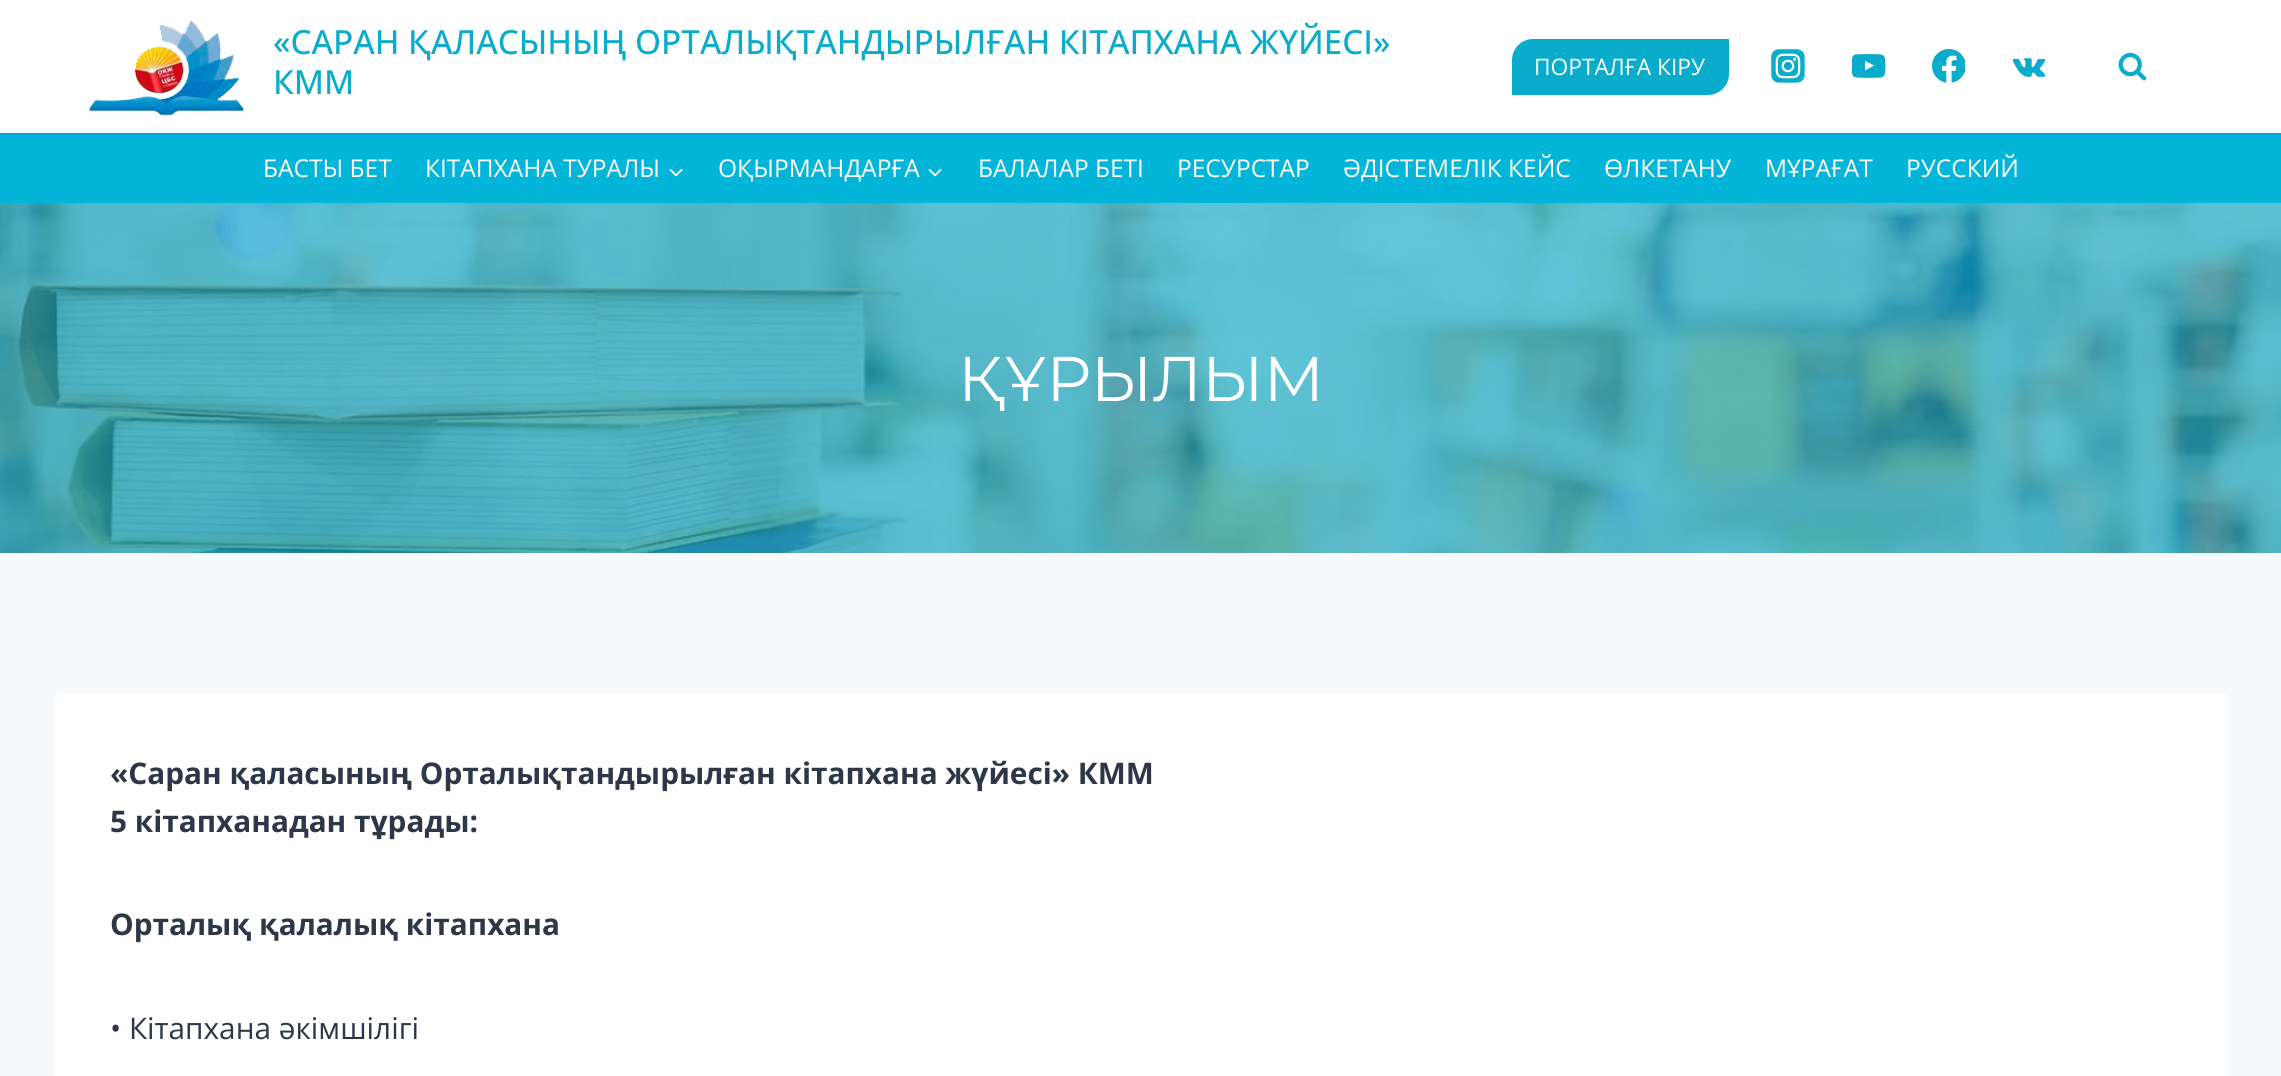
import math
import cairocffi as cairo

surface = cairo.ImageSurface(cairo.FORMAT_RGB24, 2281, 1076)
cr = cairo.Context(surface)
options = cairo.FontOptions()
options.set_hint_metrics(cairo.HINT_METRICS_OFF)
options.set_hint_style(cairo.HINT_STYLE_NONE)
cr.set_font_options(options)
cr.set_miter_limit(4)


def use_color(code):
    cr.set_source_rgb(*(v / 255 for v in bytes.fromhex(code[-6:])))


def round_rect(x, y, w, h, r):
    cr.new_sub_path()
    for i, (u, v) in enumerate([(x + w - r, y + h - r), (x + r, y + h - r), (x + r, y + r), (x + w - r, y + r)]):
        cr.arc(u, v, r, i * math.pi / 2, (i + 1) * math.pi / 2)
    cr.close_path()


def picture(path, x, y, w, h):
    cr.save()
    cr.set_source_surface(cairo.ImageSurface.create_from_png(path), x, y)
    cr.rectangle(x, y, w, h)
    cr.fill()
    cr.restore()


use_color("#f7fafc")
cr.paint()
use_color("#ffffff")
cr.rectangle(0, 0, 2281, 133)
cr.fill()
picture("img1.png", 89, 20, 155, 96)
cr.select_font_face("Open Sans Medium")
cr.set_font_size(33.25)
use_color("#0aaccc")
cr.move_to(273, 54)
cr.show_text("«САРАН ҚАЛАСЫНЫҢ ОРТАЛЫҚТАНДЫРЫЛҒАН КІТАПХАНА ЖҮЙЕСІ»")
cr.move_to(273, 94)
cr.show_text("КММ")
cr.new_path()
cr.move_to(1533, 39)
cr.line_to(1729, 39)
cr.line_to(1729, 74)
cr.curve_to(1729, 85.5, 1719.5, 95, 1708, 95)
cr.line_to(1512, 95)
cr.line_to(1512, 60)
cr.curve_to(1512, 48.5, 1521.5, 39, 1533, 39)
cr.close_path()
cr.fill()
cr.select_font_face("Open Sans")
cr.set_font_size(22.75)
use_color("#ffffff")
cr.move_to(1534, 75)
cr.show_text("ПОРТАЛҒА КІРУ")
picture("img2.png", 1771, 49, 34, 34)
picture("img3.png", 1852, 54, 34, 24)
picture("img4.png", 1932, 49, 33, 34)
picture("img5.png", 2013, 58, 33, 19)
picture("img6.png", 2118, 52, 29, 29)
use_color("#03b5d9")
cr.rectangle(0, 135, 2281, 68)
cr.fill()
use_color("#00a7d9")
cr.rectangle(0, 133, 2281, 2)
cr.fill()
cr.set_font_size(24.5)
use_color("#ffffff")
cr.move_to(263, 177)
cr.show_text("БАСТЫ БЕТ")
cr.move_to(425, 177)
cr.show_text("КІТАПХАНА ТУРАЛЫ")
picture("img7.png", 669, 169, 14, 8)
cr.move_to(718, 177)
cr.show_text("ОҚЫРМАНДАРҒА")
picture("img7.png", 928, 169, 14, 8)
cr.move_to(978, 177)
cr.show_text("БАЛАЛАР БЕТІ")
cr.move_to(1177, 177)
cr.show_text("РЕСУРСТАР")
cr.move_to(1343, 177)
cr.show_text("ӘДІСТЕМЕЛІК КЕЙС")
cr.move_to(1604, 177)
cr.show_text("ӨЛКЕТАНУ")
cr.move_to(1765, 177)
cr.show_text("МҰРАҒАТ")
cr.move_to(1906, 177)
cr.show_text("РУССКИЙ")
picture("img8.png", 0, 203, 2281, 350)
cr.select_font_face("Montserrat")
cr.set_font_size(63)
cr.move_to(958, 401)
cr.show_text("ҚҰРЫЛЫМ")
round_rect(54, 693, 2174, 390, 7)
cr.fill()
cr.select_font_face("Open Sans", cairo.FONT_SLANT_NORMAL, cairo.FONT_WEIGHT_BOLD)
cr.set_font_size(29.75)
use_color("#2d3748")
cr.move_to(110, 784)
cr.show_text("«Саран қаласының Орталықтандырылған кітапхана жүйесі» КММ")
cr.move_to(110, 832)
cr.show_text("5 кітапханадан тұрады:")
cr.move_to(110, 935)
cr.show_text("Орталық қалалық кітапхана")
cr.select_font_face("Open Sans")
cr.move_to(110, 1039)
cr.show_text("• Кітапхана әкімшілігі")
surface.write_to_png("result.png")
